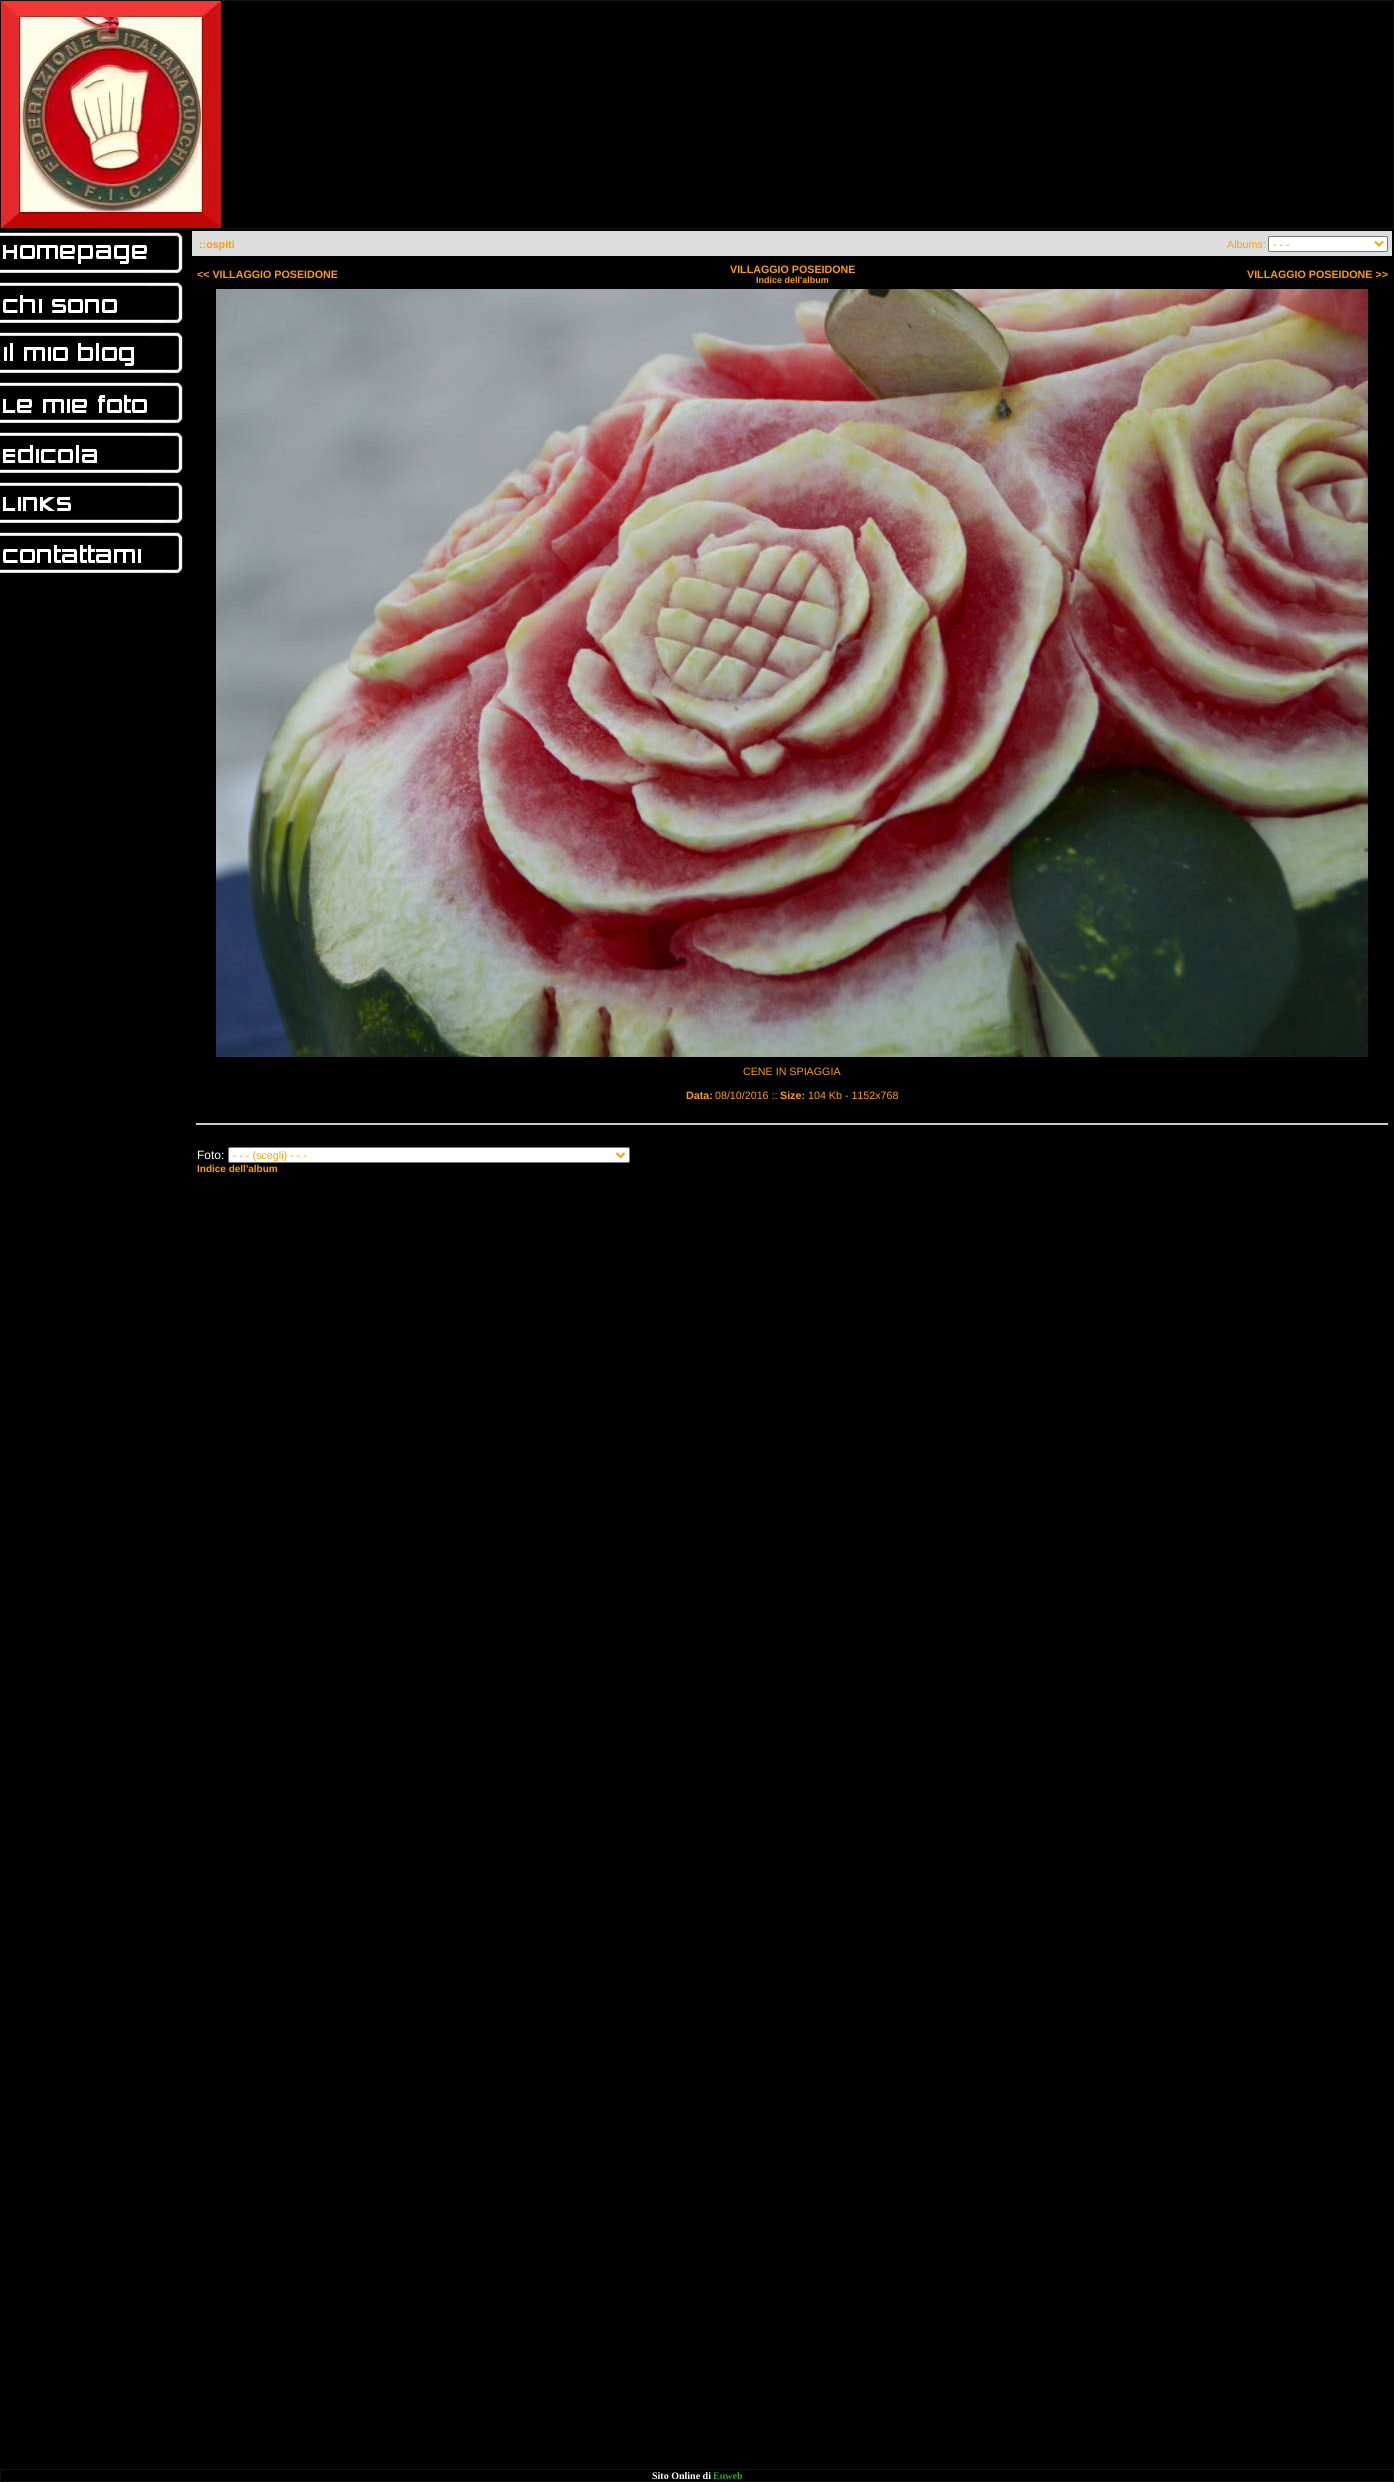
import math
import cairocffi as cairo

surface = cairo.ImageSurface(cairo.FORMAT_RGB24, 1394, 2482)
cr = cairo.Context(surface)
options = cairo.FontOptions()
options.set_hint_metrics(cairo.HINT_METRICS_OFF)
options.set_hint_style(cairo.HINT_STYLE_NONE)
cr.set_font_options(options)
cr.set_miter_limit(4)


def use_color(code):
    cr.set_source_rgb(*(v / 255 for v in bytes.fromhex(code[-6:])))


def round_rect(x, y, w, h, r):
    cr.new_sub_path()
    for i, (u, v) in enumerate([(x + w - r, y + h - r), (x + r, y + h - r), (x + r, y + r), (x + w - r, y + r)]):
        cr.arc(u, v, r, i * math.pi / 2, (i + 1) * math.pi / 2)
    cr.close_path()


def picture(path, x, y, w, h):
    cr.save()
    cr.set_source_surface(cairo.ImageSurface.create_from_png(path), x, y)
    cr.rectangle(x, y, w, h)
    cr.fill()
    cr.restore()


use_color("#000000")
cr.paint()
use_color("#111111")
cr.rectangle(0, 0, 1394, 1)
cr.fill()
cr.rectangle(1393, 0, 1, 229)
cr.fill()
cr.rectangle(0, 228, 1394, 1)
cr.fill()
cr.rectangle(0, 0, 1, 229)
cr.fill()
picture("img1.png", 1, 1, 220, 227)
picture("img2.png", 0, 232, 183, 42)
picture("img3.png", 0, 282, 183, 42)
picture("img4.png", 0, 332, 183, 42)
picture("img5.png", 0, 382, 183, 42)
picture("img6.png", 0, 432, 183, 42)
picture("img7.png", 0, 482, 183, 42)
picture("img8.png", 0, 532, 183, 42)
use_color("#dddddd")
cr.rectangle(192, 231, 1200, 25)
cr.fill()
cr.select_font_face("Liberation Sans", cairo.FONT_SLANT_NORMAL, cairo.FONT_WEIGHT_BOLD)
cr.set_font_size(10.7)
use_color("#ff9d00")
cr.move_to(199, 248)
cr.show_text("::ospiti")
cr.select_font_face("Liberation Sans")
cr.move_to(1227, 248)
cr.show_text("Albums:")
use_color("#ffffff")
round_rect(1268.5, 236.5, 119, 15, 1.5)
cr.fill_preserve()
use_color("#767676")
cr.set_line_width(1)
cr.stroke()
cr.new_path()
cr.move_to(1375, 241.5)
cr.line_to(1379, 245.5)
cr.line_to(1383, 241.5)
use_color("#ff9d00")
cr.set_line_width(2)
cr.stroke()
cr.move_to(1273, 248)
cr.show_text("- - -")
cr.select_font_face("Liberation Sans", cairo.FONT_SLANT_NORMAL, cairo.FONT_WEIGHT_BOLD)
cr.move_to(197, 278)
cr.show_text("<< VILLAGGIO POSEIDONE")
cr.move_to(730, 273)
cr.show_text("VILLAGGIO POSEIDONE")
cr.set_font_size(9)
cr.move_to(756, 283)
cr.show_text("Indice dell'album")
cr.set_font_size(10.7)
cr.move_to(1247, 278)
cr.show_text("VILLAGGIO POSEIDONE >>")
picture("img9.png", 216, 289, 1152, 768)
cr.select_font_face("Liberation Sans")
cr.move_to(743, 1075)
cr.show_text("CENE IN SPIAGGIA")
cr.select_font_face("Liberation Sans", cairo.FONT_SLANT_NORMAL, cairo.FONT_WEIGHT_BOLD)
cr.move_to(686, 1099)
cr.show_text("Data:")
cr.select_font_face("Liberation Sans")
cr.move_to(715, 1099)
cr.show_text("08/10/2016 ::")
cr.select_font_face("Liberation Sans", cairo.FONT_SLANT_NORMAL, cairo.FONT_WEIGHT_BOLD)
cr.move_to(780, 1099)
cr.show_text("Size:")
cr.select_font_face("Liberation Sans")
cr.move_to(808, 1099)
cr.show_text("104 Kb - 1152x768")
use_color("#cccccc")
cr.rectangle(196, 1123, 1192, 2)
cr.fill()
cr.set_font_size(12)
use_color("#ffffff")
cr.move_to(197, 1159)
cr.show_text("Foto:")
round_rect(228.5, 1147.5, 401, 15, 1.5)
cr.fill_preserve()
use_color("#767676")
cr.set_line_width(1)
cr.stroke()
cr.new_path()
cr.move_to(616.5, 1153)
cr.line_to(620.5, 1157)
cr.line_to(624.5, 1153)
use_color("#ff9d00")
cr.set_line_width(2)
cr.stroke()
cr.set_font_size(10.7)
cr.move_to(233, 1159)
cr.show_text("- - - (scegli) - - -")
cr.select_font_face("Liberation Sans", cairo.FONT_SLANT_NORMAL, cairo.FONT_WEIGHT_BOLD)
cr.set_font_size(10)
cr.move_to(197, 1172)
cr.show_text("Indice dell'album")
use_color("#111111")
cr.rectangle(0, 2469, 1394, 1)
cr.fill()
cr.rectangle(1393, 2469, 1, 13)
cr.fill()
cr.rectangle(0, 2481, 1394, 1)
cr.fill()
cr.rectangle(0, 2469, 1, 13)
cr.fill()
cr.select_font_face("Liberation Serif", cairo.FONT_SLANT_NORMAL, cairo.FONT_WEIGHT_BOLD)
use_color("#ffffff")
cr.move_to(652, 2479)
cr.show_text("Sito Online di")
use_color("#2aa52a")
cr.move_to(713, 2479)
cr.show_text("Euweb")
surface.write_to_png("result.png")
